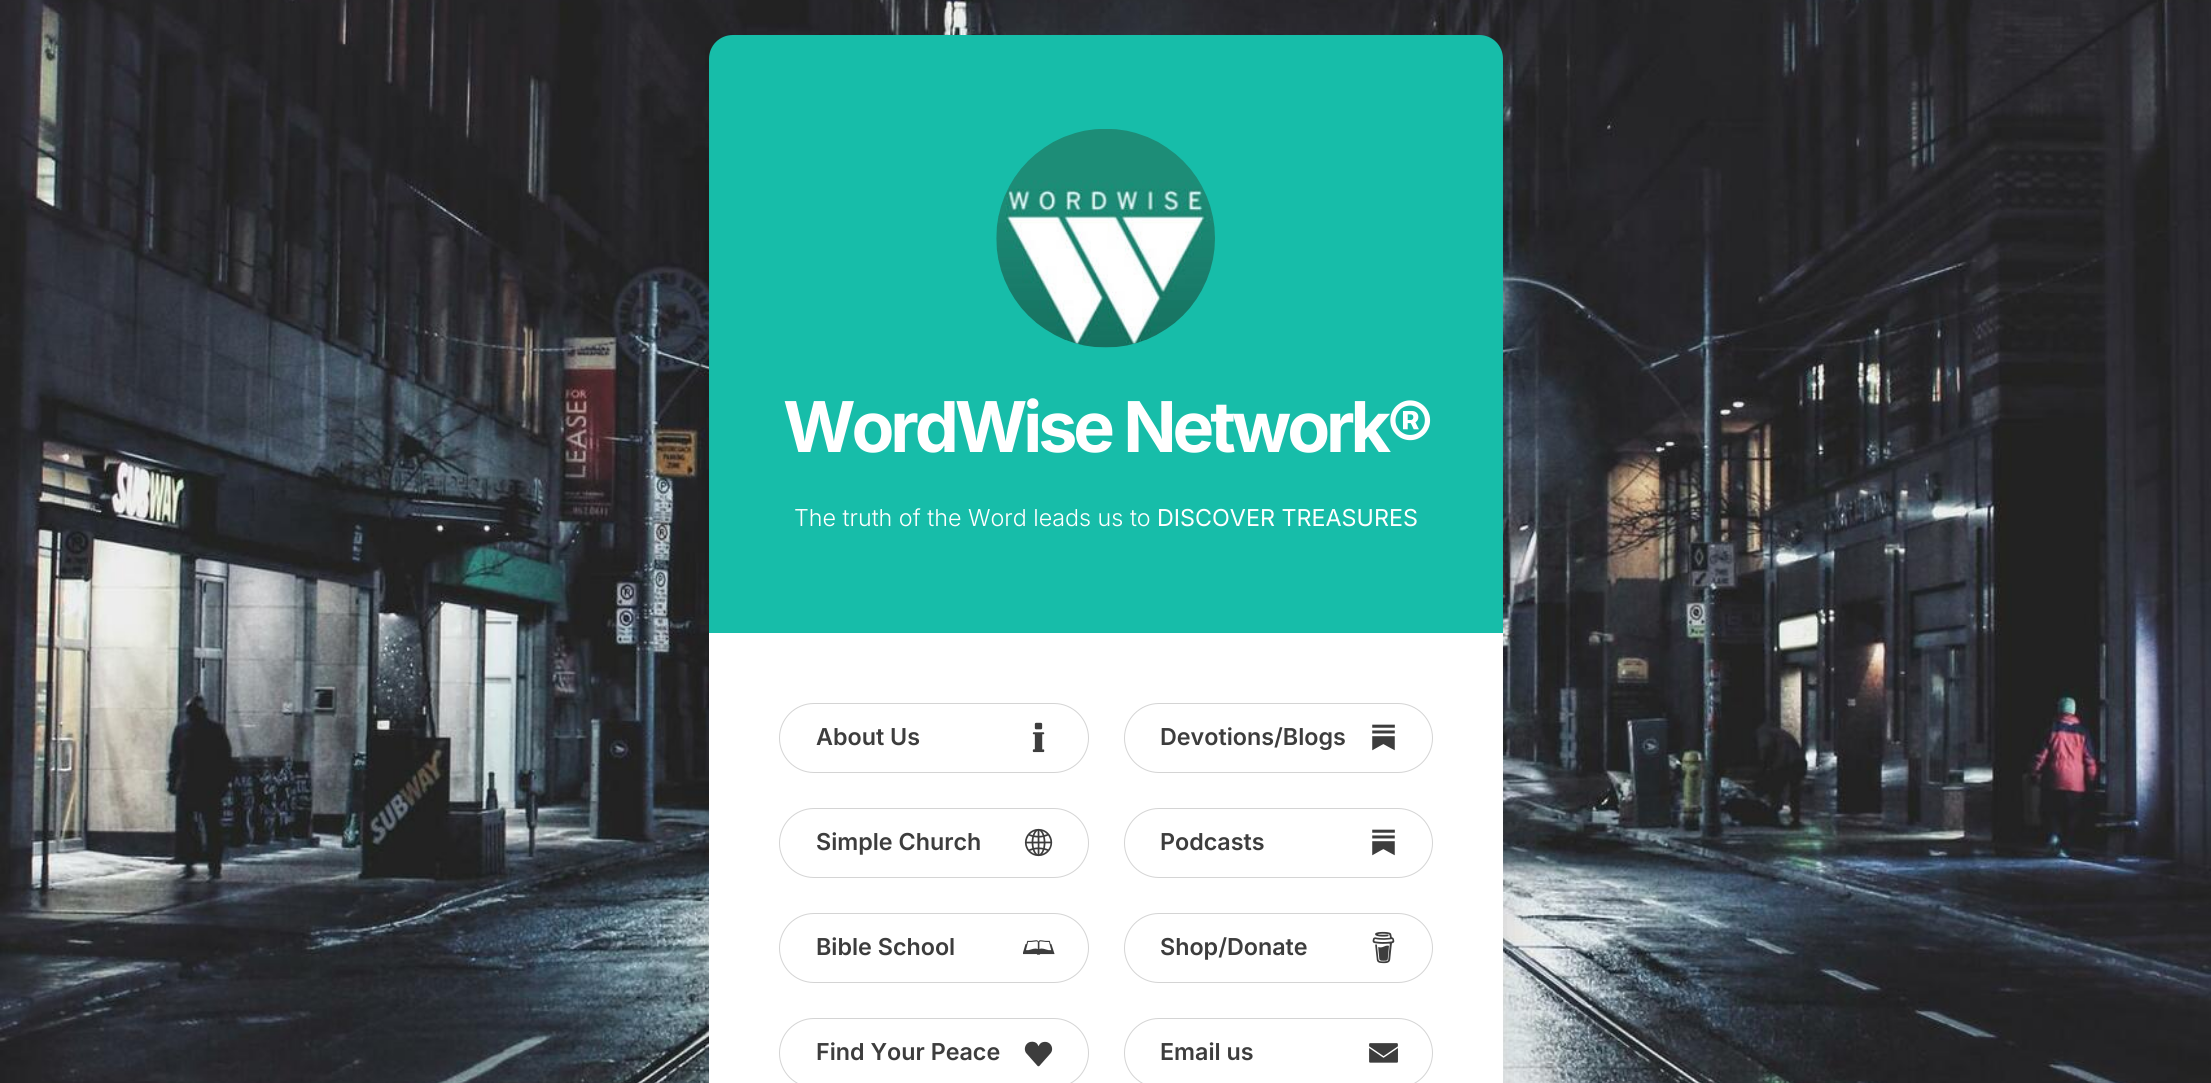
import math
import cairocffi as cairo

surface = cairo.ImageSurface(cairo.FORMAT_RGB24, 2211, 1083)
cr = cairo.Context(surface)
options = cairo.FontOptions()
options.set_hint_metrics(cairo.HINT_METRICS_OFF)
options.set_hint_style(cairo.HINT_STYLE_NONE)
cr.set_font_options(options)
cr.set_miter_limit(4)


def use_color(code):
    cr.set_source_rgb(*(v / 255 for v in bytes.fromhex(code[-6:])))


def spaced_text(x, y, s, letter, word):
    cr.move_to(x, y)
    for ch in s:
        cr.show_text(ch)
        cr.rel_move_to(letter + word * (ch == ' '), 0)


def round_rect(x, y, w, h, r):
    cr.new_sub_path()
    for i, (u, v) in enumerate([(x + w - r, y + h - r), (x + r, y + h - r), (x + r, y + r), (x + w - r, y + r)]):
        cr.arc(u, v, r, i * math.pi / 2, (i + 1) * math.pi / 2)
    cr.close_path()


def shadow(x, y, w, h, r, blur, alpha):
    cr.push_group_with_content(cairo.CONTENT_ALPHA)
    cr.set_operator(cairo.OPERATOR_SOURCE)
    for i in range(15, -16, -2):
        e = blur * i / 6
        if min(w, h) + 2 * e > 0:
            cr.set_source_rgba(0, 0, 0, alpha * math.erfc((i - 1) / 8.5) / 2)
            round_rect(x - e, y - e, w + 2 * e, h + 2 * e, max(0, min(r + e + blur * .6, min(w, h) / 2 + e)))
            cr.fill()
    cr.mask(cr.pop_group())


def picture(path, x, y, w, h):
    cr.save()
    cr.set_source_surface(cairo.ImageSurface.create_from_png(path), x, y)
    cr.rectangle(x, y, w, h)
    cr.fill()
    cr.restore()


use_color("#ffffff")
cr.paint()
picture("img1.png", 0, 0, 2211, 1083)
use_color("#000000")
shadow(709, 76, 794, 598, 24, 23.5, 0.12)
use_color("#17bda9")
cr.new_path()
cr.move_to(733, 35)
cr.line_to(1479, 35)
cr.curve_to(1492.5, 35, 1503, 45.5, 1503, 59)
cr.line_to(1503, 633)
cr.line_to(709, 633)
cr.line_to(709, 59)
cr.curve_to(709, 45.5, 719.5, 35, 733, 35)
cr.close_path()
cr.fill()
picture("img2.png", 996, 129, 219, 219)
cr.select_font_face("Inter", cairo.FONT_SLANT_NORMAL, cairo.FONT_WEIGHT_BOLD)
cr.set_font_size(70)
use_color("#ffffff")
spaced_text(783, 452, "WordWise Network®", -4.1, 0)
cr.select_font_face("Inter Light")
cr.set_font_size(23.3)
cr.move_to(794, 526)
cr.show_text("The truth of the Word leads us to")
cr.select_font_face("Inter")
cr.move_to(1157, 526)
cr.show_text("DISCOVER TREASURES")
use_color("#000000")
shadow(709, 674, 794, 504, 24, 23.5, 0.12)
use_color("#ffffff")
cr.rectangle(709, 633, 794, 450)
cr.fill()
round_rect(779.5, 703.5, 309, 69, 34.5)
use_color("#d4d4d4")
cr.set_line_width(1)
cr.stroke()
cr.select_font_face("Inter SemiBold")
use_color("#3d3d3d")
cr.move_to(816, 745)
cr.show_text("About Us")
picture("img3.png", 1032, 722, 13, 31)
round_rect(779.5, 808.5, 309, 69, 34.5)
use_color("#d4d4d4")
cr.stroke()
use_color("#3d3d3d")
cr.move_to(816, 850)
cr.show_text("Simple Church")
picture("img4.png", 1024, 828, 29, 29)
round_rect(779.5, 913.5, 309, 69, 34.5)
use_color("#d4d4d4")
cr.stroke()
use_color("#3d3d3d")
cr.move_to(816, 955)
cr.show_text("Bible School")
picture("img5.png", 1023, 940, 32, 15)
round_rect(779.5, 1018.5, 309, 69, 34.5)
use_color("#d4d4d4")
cr.stroke()
use_color("#3d3d3d")
cr.move_to(816, 1060)
cr.show_text("Find Your Peace")
picture("img6.png", 1024, 1041, 29, 26)
round_rect(1124.5, 703.5, 308, 69, 34.5)
use_color("#d4d4d4")
cr.stroke()
use_color("#3d3d3d")
cr.move_to(1160, 745)
cr.show_text("Devotions/Blogs")
picture("img7.png", 1372, 724, 23, 27)
round_rect(1124.5, 808.5, 308, 69, 34.5)
use_color("#d4d4d4")
cr.stroke()
use_color("#3d3d3d")
cr.move_to(1160, 850)
cr.show_text("Podcasts")
picture("img7.png", 1372, 829, 23, 27)
round_rect(1124.5, 913.5, 308, 69, 34.5)
use_color("#d4d4d4")
cr.stroke()
use_color("#3d3d3d")
cr.move_to(1160, 955)
cr.show_text("Shop/Donate")
picture("img8.png", 1372, 931, 23, 33)
round_rect(1124.5, 1018.5, 308, 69, 34.5)
use_color("#d4d4d4")
cr.stroke()
use_color("#3d3d3d")
cr.move_to(1160, 1060)
cr.show_text("Email us")
picture("img9.png", 1369, 1043, 29, 20)
surface.write_to_png("result.png")
